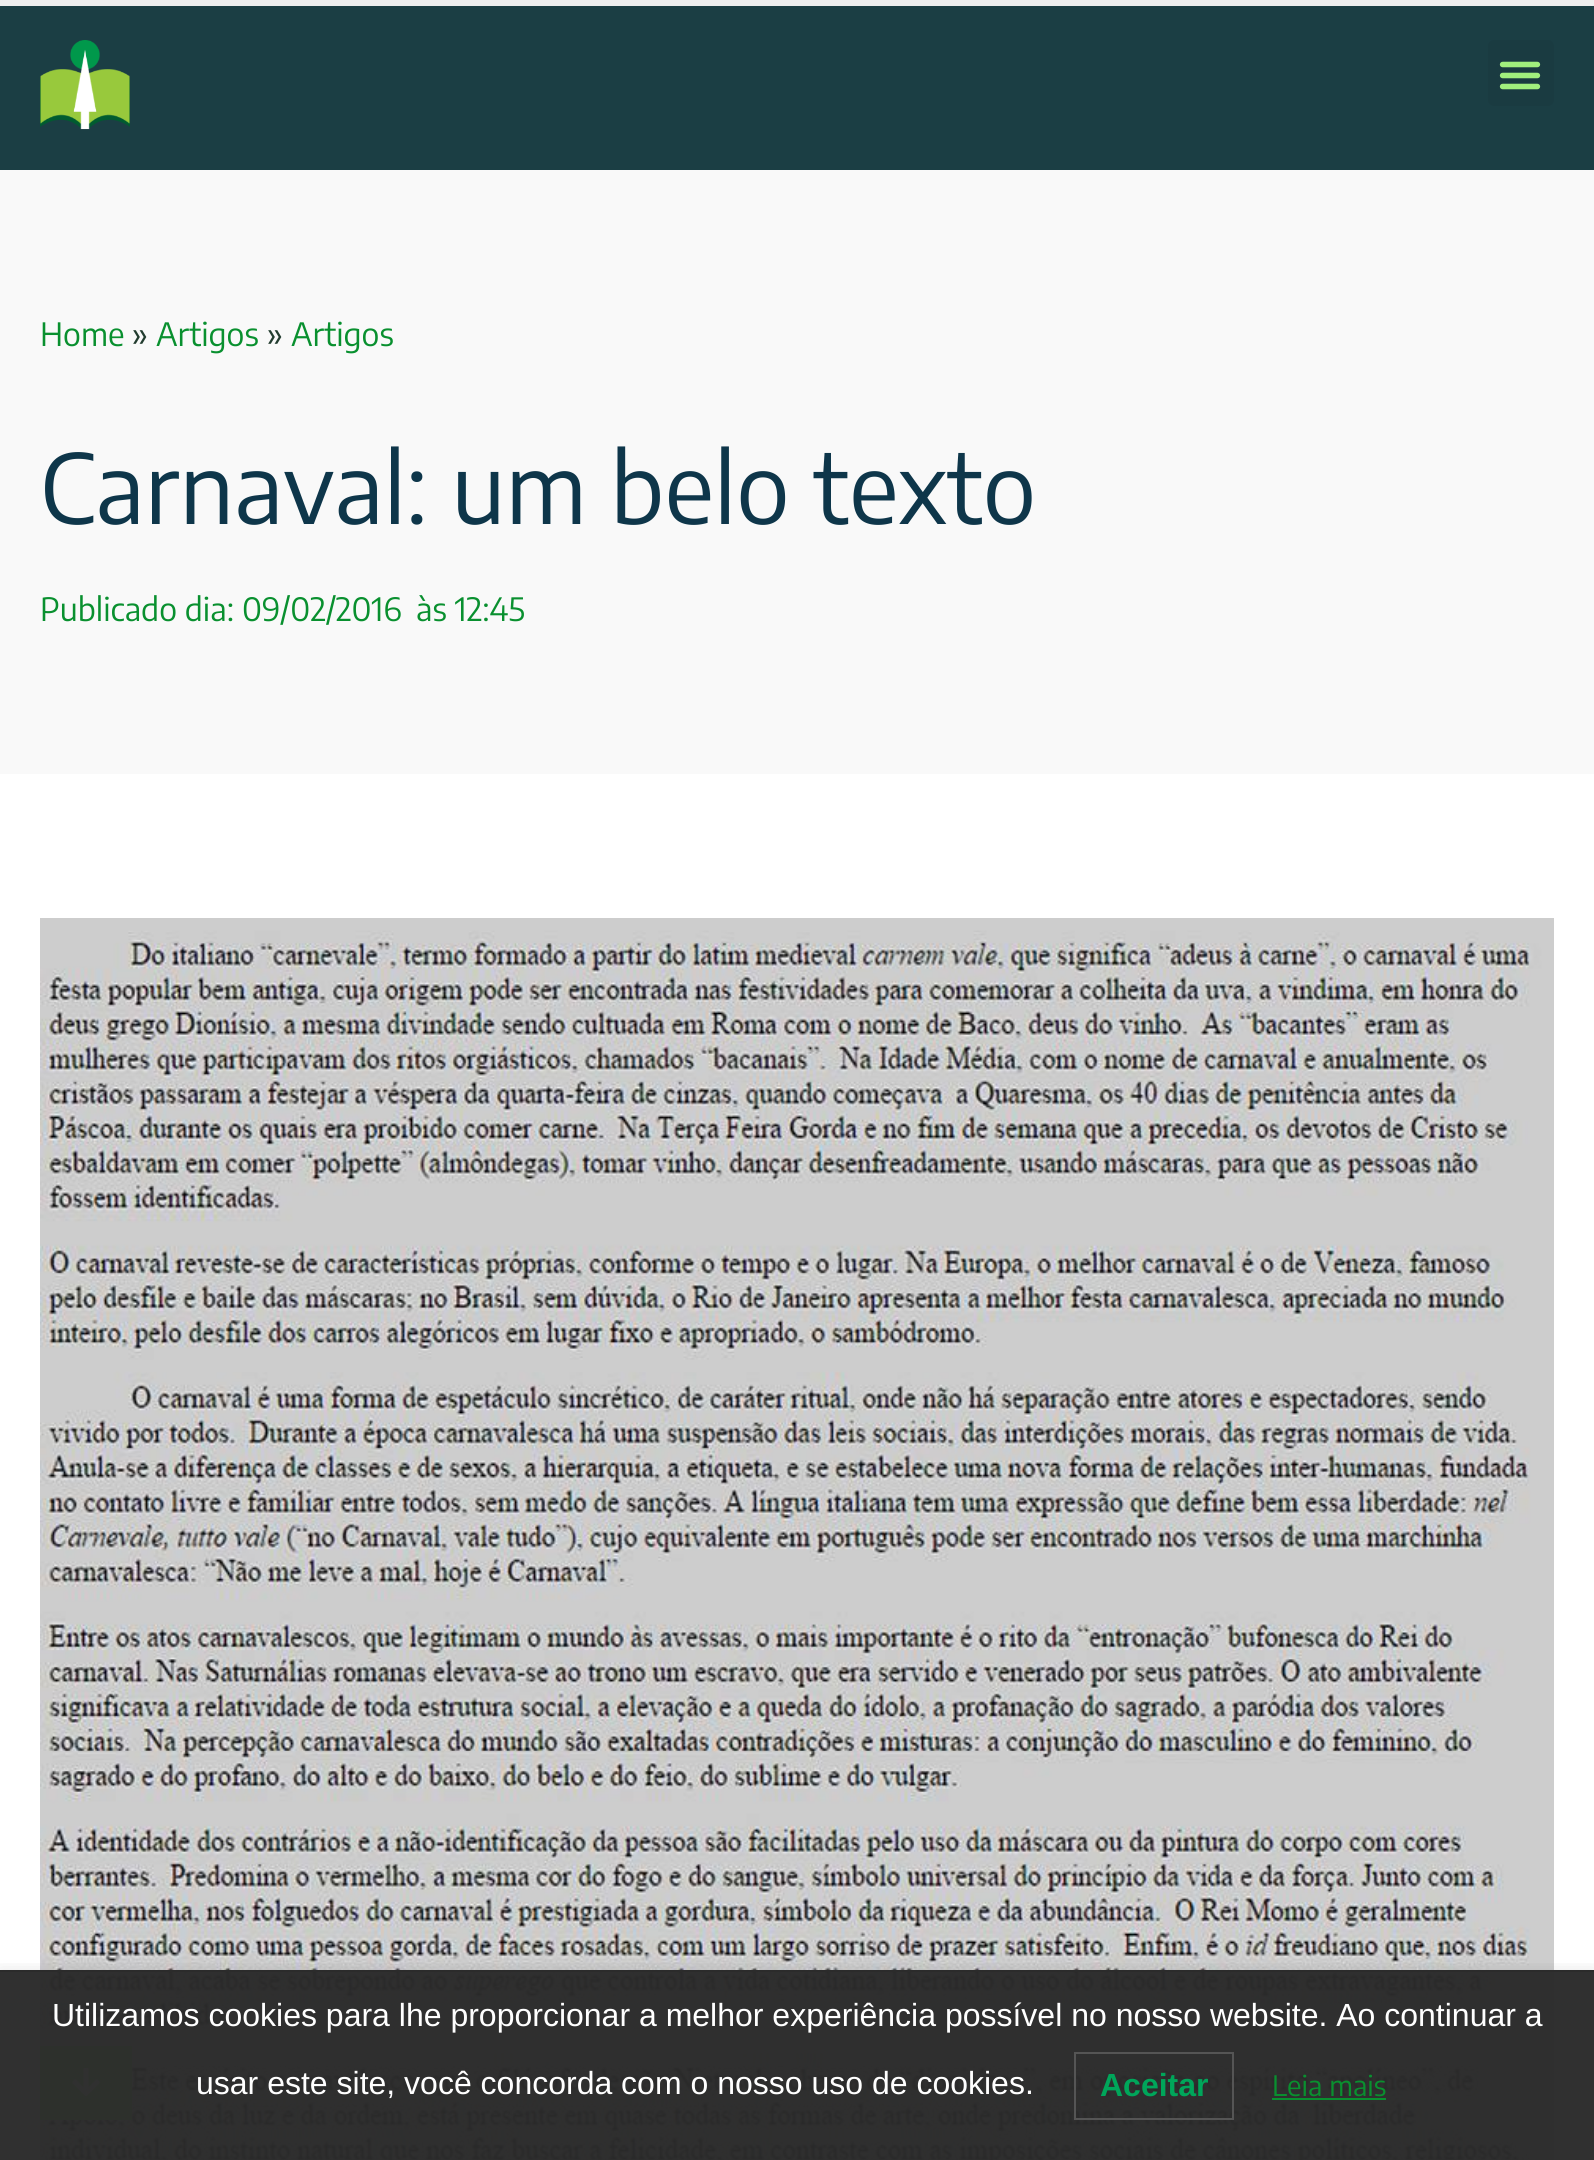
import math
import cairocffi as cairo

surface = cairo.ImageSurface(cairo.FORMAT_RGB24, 1594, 2160)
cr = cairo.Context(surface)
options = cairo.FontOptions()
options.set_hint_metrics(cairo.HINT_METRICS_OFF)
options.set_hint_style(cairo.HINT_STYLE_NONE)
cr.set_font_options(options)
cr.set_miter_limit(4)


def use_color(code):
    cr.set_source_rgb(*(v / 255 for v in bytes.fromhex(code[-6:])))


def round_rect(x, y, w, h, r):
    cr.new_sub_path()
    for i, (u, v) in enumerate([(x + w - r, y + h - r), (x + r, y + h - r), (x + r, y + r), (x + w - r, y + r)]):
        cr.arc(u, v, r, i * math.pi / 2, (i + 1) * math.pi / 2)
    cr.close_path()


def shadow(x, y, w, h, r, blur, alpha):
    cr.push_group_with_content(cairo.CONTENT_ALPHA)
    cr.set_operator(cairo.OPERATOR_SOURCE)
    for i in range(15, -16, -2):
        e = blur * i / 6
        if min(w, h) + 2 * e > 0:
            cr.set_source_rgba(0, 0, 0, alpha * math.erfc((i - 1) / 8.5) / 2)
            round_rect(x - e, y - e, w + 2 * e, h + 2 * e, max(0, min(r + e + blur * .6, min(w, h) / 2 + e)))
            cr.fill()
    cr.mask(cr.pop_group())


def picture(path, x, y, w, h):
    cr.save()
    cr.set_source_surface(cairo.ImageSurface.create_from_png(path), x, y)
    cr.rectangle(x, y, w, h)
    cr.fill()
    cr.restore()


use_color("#f9f9f9")
cr.paint()
use_color("#1b3e44")
cr.rectangle(0, 6, 1594, 164)
cr.fill()
picture("img1.png", 40, 40, 90, 90)
use_color("#1a3b41")
round_rect(1488, 40, 66, 66, 6)
cr.fill()
picture("img2.png", 1499, 61, 42, 29)
use_color("#eeeeee")
cr.rectangle(0, 0, 1594, 6)
cr.fill()
cr.select_font_face("Encode Sans Condensed")
cr.set_font_size(32)
use_color("#09902f")
cr.move_to(40, 346)
cr.show_text("Home")
use_color("#223c2f")
cr.move_to(132, 346)
cr.show_text("»")
use_color("#09902f")
cr.move_to(156, 346)
cr.show_text("Artigos")
use_color("#223c2f")
cr.move_to(267, 346)
cr.show_text("»")
use_color("#09902f")
cr.move_to(291, 346)
cr.show_text("Artigos")
cr.set_font_size(96)
use_color("#0e364a")
cr.move_to(40, 524)
cr.show_text("Carnaval: um belo texto")
cr.set_font_size(32)
use_color("#09902f")
cr.move_to(40, 621)
cr.show_text("Publicado dia: 09/02/2016")
cr.move_to(416, 621)
cr.show_text("às 12:45")
use_color("#ffffff")
cr.rectangle(0, 774, 1594, 1386)
cr.fill()
picture("img3.png", 40, 918, 1514, 1242)
use_color("#a1ef7d")
cr.rectangle(40, 2046, 92, 74)
cr.fill()
picture("img4.png", 72, 2068, 28, 28)
cr.save()
cr.rectangle(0, 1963, 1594, 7)
cr.clip()
use_color("#000000")
shadow(0, 1970, 1594, 190, 0, 8, 0.1)
cr.restore()
cr.set_source_rgba(0.169, 0.169, 0.169, 0.97)
cr.rectangle(0, 1972, 1594, 188)
cr.fill()
use_color("#2b2b2b")
cr.rectangle(0, 1970, 1594, 2)
cr.fill()
cr.select_font_face("Liberation Sans")
use_color("#ffffff")
cr.move_to(52, 2026)
cr.show_text("Utilizamos cookies para lhe proporcionar a melhor experiência possível no nosso website. Ao continuar a")
cr.move_to(196, 2094)
cr.show_text("usar este site, você concorda com o nosso uso de cookies.")
cr.rectangle(1075, 2053, 158, 66)
use_color("#555555")
cr.stroke()
cr.select_font_face("Liberation Sans", cairo.FONT_SLANT_NORMAL, cairo.FONT_WEIGHT_BOLD)
use_color("#00a65a")
cr.move_to(1100, 2096)
cr.show_text("Aceitar")
cr.select_font_face("Encode Sans Condensed")
cr.set_font_size(28)
use_color("#09902f")
cr.move_to(1272, 2096)
cr.show_text("Leia mais")
cr.rectangle(1272, 2098, 114, 2)
cr.fill()
surface.write_to_png("result.png")
